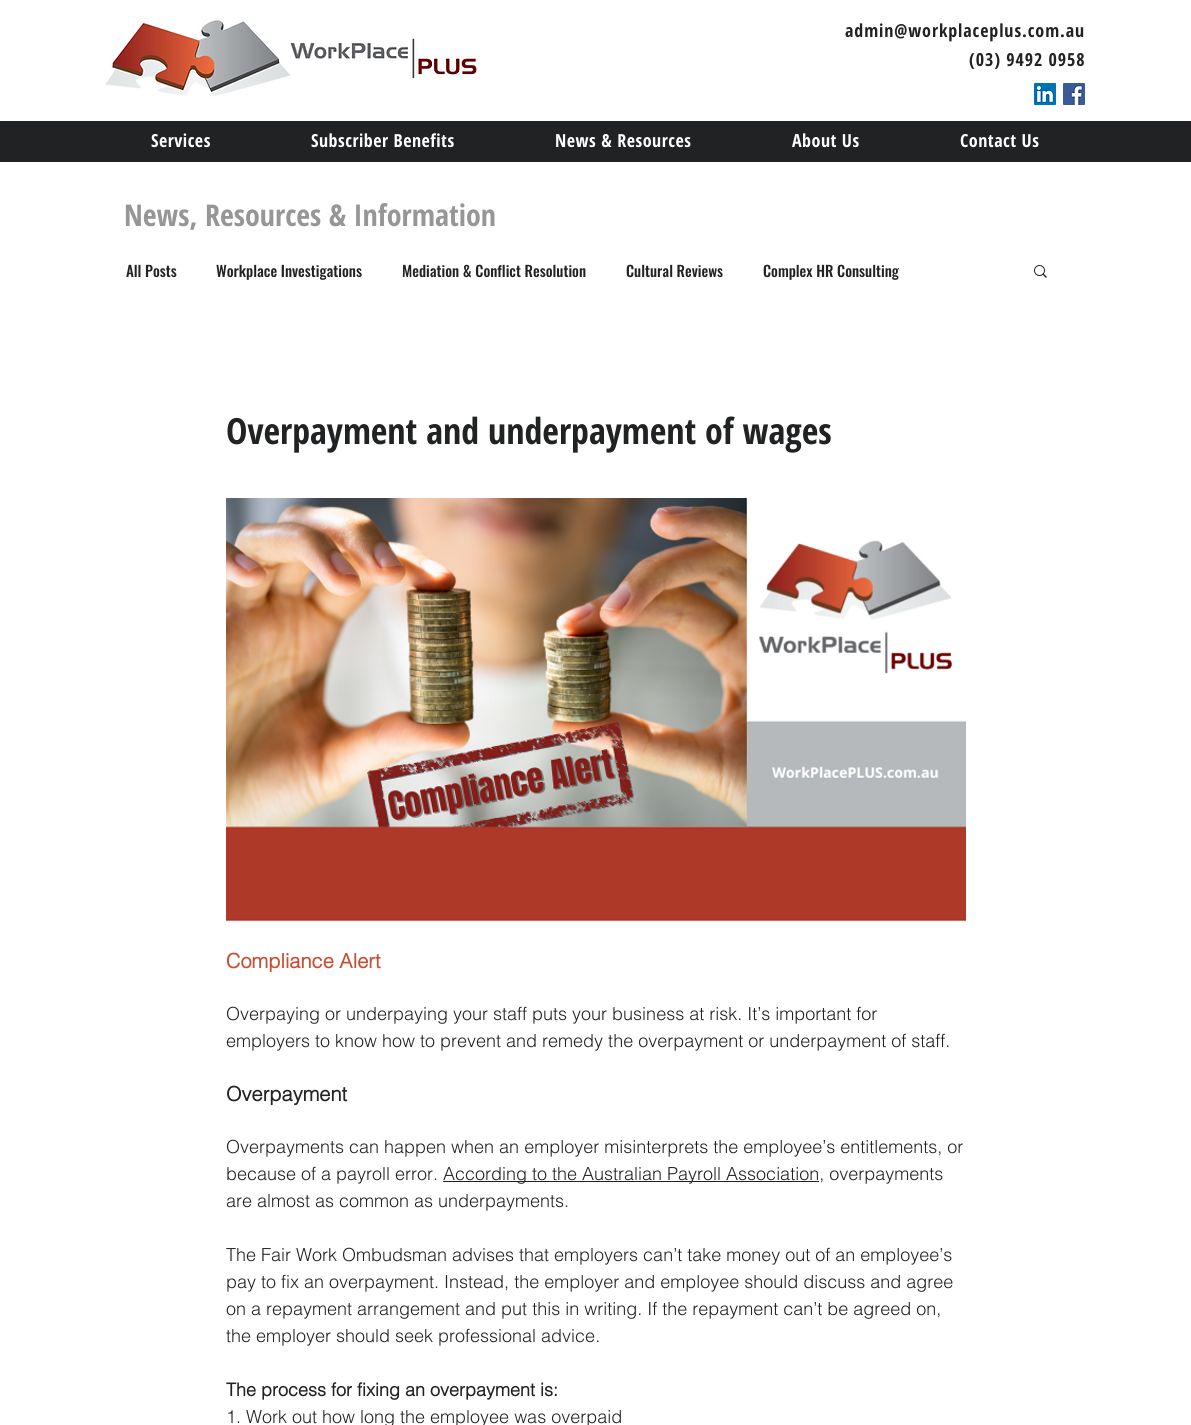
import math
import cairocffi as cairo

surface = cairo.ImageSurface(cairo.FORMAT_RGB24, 1191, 1425)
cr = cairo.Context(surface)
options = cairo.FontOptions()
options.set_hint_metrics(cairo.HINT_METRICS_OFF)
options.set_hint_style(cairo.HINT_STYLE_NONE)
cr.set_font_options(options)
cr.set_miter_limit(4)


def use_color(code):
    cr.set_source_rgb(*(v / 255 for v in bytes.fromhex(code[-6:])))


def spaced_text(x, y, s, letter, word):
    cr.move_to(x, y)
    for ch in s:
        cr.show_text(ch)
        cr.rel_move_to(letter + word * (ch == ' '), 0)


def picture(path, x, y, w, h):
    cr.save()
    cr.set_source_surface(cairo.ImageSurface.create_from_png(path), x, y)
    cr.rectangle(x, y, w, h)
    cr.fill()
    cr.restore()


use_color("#ffffff")
cr.paint()
picture("img1.png", 105, 20, 372, 77)
cr.select_font_face("Open Sans Condensed", cairo.FONT_SLANT_NORMAL, cairo.FONT_WEIGHT_BOLD)
cr.set_font_size(18)
use_color("#212223")
spaced_text(845, 37, "admin@workplaceplus.com.au", 0.9, 0)
spaced_text(969, 66, "(03) 9492 0958", 0.9, 0)
picture("img2.png", 1034, 83, 22, 22)
picture("img3.png", 1063, 83, 22, 22)
cr.rectangle(0, 121, 1191, 41)
cr.fill()
use_color("#ffffff")
spaced_text(151, 147, "Services", 0.5, 0)
spaced_text(311, 147, "Subscriber Benefits", 0.5, 0)
spaced_text(555, 147, "News & Resources", 0.5, 0)
spaced_text(792, 147, "About Us", 0.5, 0)
spaced_text(960, 147, "Contact Us", 0.5, 0)
cr.set_font_size(30)
use_color("#969696")
cr.move_to(124, 226)
cr.show_text("News, Resources & Information")
cr.select_font_face("Oswald Medium")
cr.set_font_size(15)
use_color("#212223")
cr.move_to(126, 277)
cr.show_text("All Posts")
cr.move_to(216, 277)
cr.show_text("Workplace Investigations")
cr.move_to(402, 277)
cr.show_text("Mediation & Conflict Resolution")
cr.move_to(626, 277)
cr.show_text("Cultural Reviews")
cr.move_to(763, 277)
cr.show_text("Complex HR Consulting")
picture("img4.png", 1034, 265, 13, 13)
cr.select_font_face("Open Sans Condensed", cairo.FONT_SLANT_NORMAL, cairo.FONT_WEIGHT_BOLD)
cr.set_font_size(36)
cr.move_to(226, 444)
cr.show_text("Overpayment and underpayment of wages")
picture("img5.png", 226, 498, 740, 423)
cr.select_font_face("helvetica", cairo.FONT_SLANT_NORMAL, cairo.FONT_WEIGHT_BOLD)
cr.set_font_size(20)
use_color("#c94d33")
cr.move_to(226, 968)
cr.show_text("Compliance Alert")
cr.select_font_face("helvetica Light")
cr.set_font_size(18)
use_color("#212223")
cr.move_to(226, 1020)
cr.show_text("Overpaying or underpaying your staff puts your business at risk. It’s important for")
cr.move_to(226, 1047)
cr.show_text("employers to know how to prevent and remedy the overpayment or underpayment of staff.")
cr.select_font_face("helvetica", cairo.FONT_SLANT_NORMAL, cairo.FONT_WEIGHT_BOLD)
cr.set_font_size(20)
cr.move_to(226, 1101)
cr.show_text("Overpayment")
cr.select_font_face("helvetica Light")
cr.set_font_size(18)
cr.move_to(226, 1153)
cr.show_text("Overpayments can happen when an employer misinterprets the employee’s entitlements, or")
cr.move_to(226, 1180)
cr.show_text("because of a payroll error.")
cr.rectangle(443, 1181, 376, 1)
cr.fill()
cr.move_to(443, 1180)
cr.show_text("According to the Australian Payroll Association, overpayments")
cr.move_to(226, 1207)
cr.show_text("are almost as common as underpayments.")
cr.move_to(226, 1261)
cr.show_text("The Fair Work Ombudsman advises that employers can’t take money out of an employee’s")
cr.move_to(226, 1288)
cr.show_text("pay to fix an overpayment. Instead, the employer and employee should discuss and agree")
cr.move_to(226, 1315)
cr.show_text("on a repayment arrangement and put this in writing. If the repayment can’t be agreed on,")
cr.move_to(226, 1342)
cr.show_text("the employer should seek professional advice.")
cr.select_font_face("helvetica", cairo.FONT_SLANT_NORMAL, cairo.FONT_WEIGHT_BOLD)
cr.move_to(226, 1396)
cr.show_text("The process for fixing an overpayment is:")
cr.select_font_face("helvetica Light")
cr.move_to(226, 1423)
cr.show_text("1. Work out how long the employee was overpaid")
surface.write_to_png("result.png")
